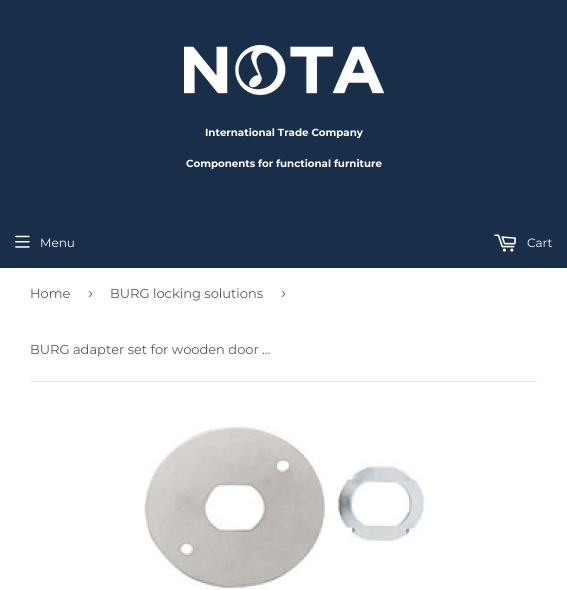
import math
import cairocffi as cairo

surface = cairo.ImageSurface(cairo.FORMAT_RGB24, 567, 590)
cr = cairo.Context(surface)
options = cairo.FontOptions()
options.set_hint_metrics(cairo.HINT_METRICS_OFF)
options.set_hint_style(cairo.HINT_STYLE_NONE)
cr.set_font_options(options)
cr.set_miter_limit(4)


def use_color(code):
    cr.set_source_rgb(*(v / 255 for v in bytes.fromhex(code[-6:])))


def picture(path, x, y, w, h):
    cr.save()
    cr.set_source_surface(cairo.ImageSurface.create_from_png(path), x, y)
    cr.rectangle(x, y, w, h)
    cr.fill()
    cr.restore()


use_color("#ffffff")
cr.paint()
use_color("#182e49")
cr.rectangle(0, 0, 567, 268)
cr.fill()
picture("img1.png", 184, 45, 200, 50)
cr.select_font_face("Montserrat", cairo.FONT_SLANT_NORMAL, cairo.FONT_WEIGHT_BOLD)
cr.set_font_size(10.25)
use_color("#ffffff")
cr.move_to(205, 136)
cr.show_text("International Trade Company")
cr.move_to(186, 167)
cr.show_text("Components for functional furniture")
picture("img2.png", 15, 235, 15, 13)
cr.select_font_face("Montserrat")
cr.set_font_size(12)
cr.move_to(40, 247)
cr.show_text("Menu")
picture("img3.png", 494, 234, 23, 18)
cr.move_to(527, 247)
cr.show_text("Cart")
use_color("#ececec")
cr.rectangle(30, 381, 507, 1)
cr.fill()
cr.set_font_size(13)
use_color("#585858")
cr.move_to(30, 298)
cr.show_text("Home")
cr.select_font_face("Liberation Sans")
cr.set_font_size(15)
use_color("#767676")
cr.move_to(88, 298)
cr.show_text("›")
cr.select_font_face("Montserrat")
cr.set_font_size(13)
use_color("#585858")
cr.move_to(110, 298)
cr.show_text("BURG locking solutions")
cr.select_font_face("Liberation Sans")
cr.set_font_size(15)
use_color("#767676")
cr.move_to(281, 298)
cr.show_text("›")
cr.select_font_face("Montserrat")
cr.set_font_size(13)
use_color("#585858")
cr.move_to(30, 354)
cr.show_text("BURG adapter set for wooden door …")
picture("img4.png", 144, 425, 281, 164)
surface.write_to_png("result.png")
